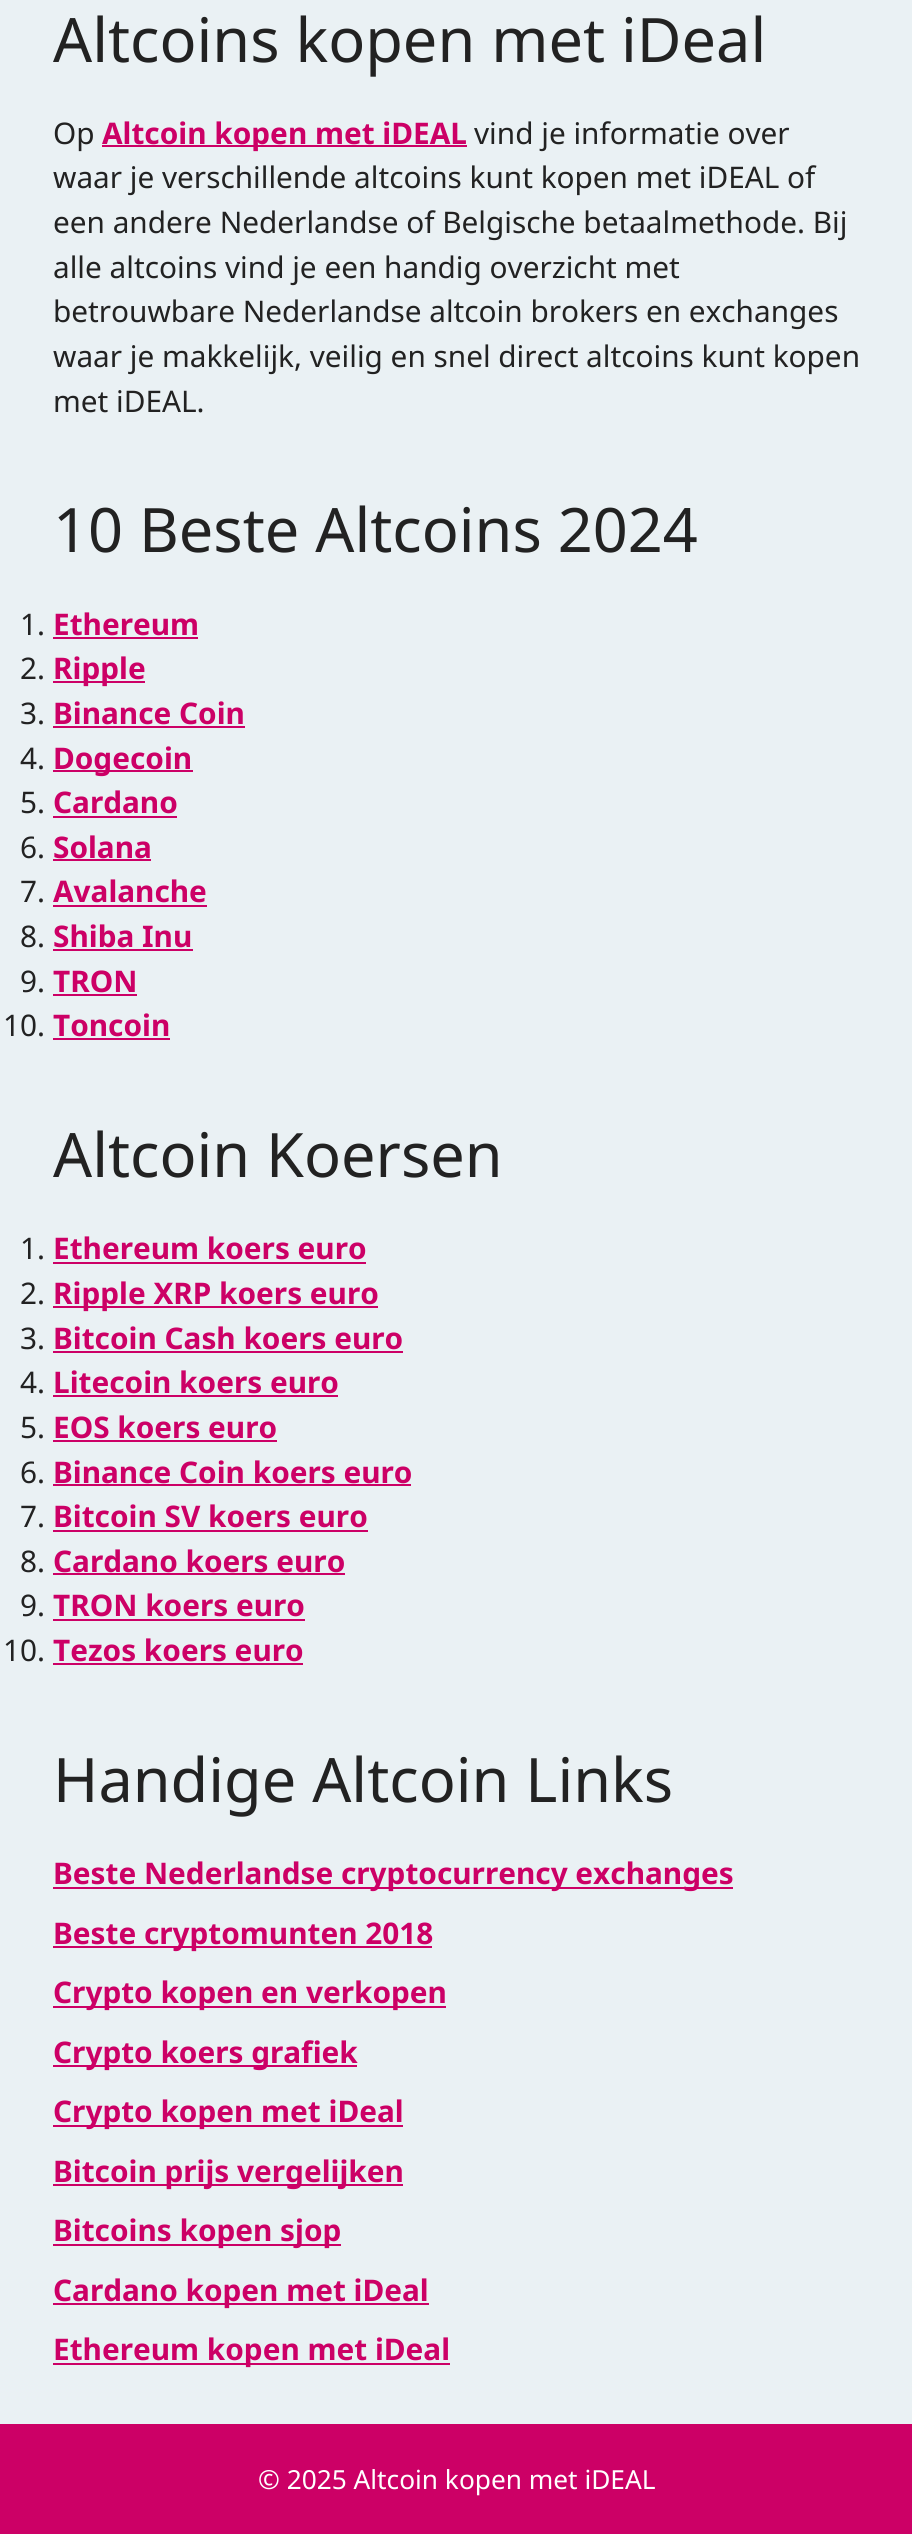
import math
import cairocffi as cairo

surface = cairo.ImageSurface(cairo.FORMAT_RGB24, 912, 2534)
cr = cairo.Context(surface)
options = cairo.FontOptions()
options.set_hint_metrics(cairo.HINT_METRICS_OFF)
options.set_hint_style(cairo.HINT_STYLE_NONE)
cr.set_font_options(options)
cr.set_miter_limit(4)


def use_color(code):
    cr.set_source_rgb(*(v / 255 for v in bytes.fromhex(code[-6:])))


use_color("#eaf1f4")
cr.paint()
cr.select_font_face("Noto Sans")
cr.set_font_size(61.25)
use_color("#222222")
cr.move_to(53, 62)
cr.show_text("Altcoins kopen met iDeal")
cr.set_font_size(29.75)
cr.move_to(53, 144)
cr.show_text("Op")
use_color("#cc0066")
cr.rectangle(102, 145, 365, 2)
cr.fill()
cr.select_font_face("Noto Sans", cairo.FONT_SLANT_NORMAL, cairo.FONT_WEIGHT_BOLD)
cr.move_to(102, 144)
cr.show_text("Altcoin kopen met iDEAL")
cr.select_font_face("Noto Sans")
use_color("#222222")
cr.move_to(474, 144)
cr.show_text("vind je informatie over")
cr.move_to(53, 188)
cr.show_text("waar je verschillende altcoins kunt kopen met iDEAL of")
cr.move_to(53, 233)
cr.show_text("een andere Nederlandse of Belgische betaalmethode. Bij")
cr.move_to(53, 278)
cr.show_text("alle altcoins vind je een handig overzicht met")
cr.move_to(53, 322)
cr.show_text("betrouwbare Nederlandse altcoin brokers en exchanges")
cr.move_to(53, 367)
cr.show_text("waar je makkelijk, veilig en snel direct altcoins kunt kopen")
cr.move_to(53, 412)
cr.show_text("met iDEAL.")
cr.set_font_size(61.25)
cr.move_to(53, 552)
cr.show_text("10 Beste Altcoins 2024")
cr.set_font_size(29.75)
cr.move_to(20, 635)
cr.show_text("1.")
cr.select_font_face("Noto Sans", cairo.FONT_SLANT_NORMAL, cairo.FONT_WEIGHT_BOLD)
use_color("#cc0066")
cr.move_to(53, 635)
cr.show_text("Ethereum")
cr.rectangle(53, 637, 145, 2)
cr.fill()
cr.select_font_face("Noto Sans")
use_color("#222222")
cr.move_to(20, 679)
cr.show_text("2.")
use_color("#cc0066")
cr.rectangle(53, 681, 92, 2)
cr.fill()
cr.select_font_face("Noto Sans", cairo.FONT_SLANT_NORMAL, cairo.FONT_WEIGHT_BOLD)
cr.move_to(53, 679)
cr.show_text("Ripple")
cr.select_font_face("Noto Sans")
use_color("#222222")
cr.move_to(20, 724)
cr.show_text("3.")
cr.select_font_face("Noto Sans", cairo.FONT_SLANT_NORMAL, cairo.FONT_WEIGHT_BOLD)
use_color("#cc0066")
cr.move_to(53, 724)
cr.show_text("Binance Coin")
cr.rectangle(53, 726, 192, 2)
cr.fill()
cr.select_font_face("Noto Sans")
use_color("#222222")
cr.move_to(20, 769)
cr.show_text("4.")
use_color("#cc0066")
cr.rectangle(53, 770, 140, 2)
cr.fill()
cr.select_font_face("Noto Sans", cairo.FONT_SLANT_NORMAL, cairo.FONT_WEIGHT_BOLD)
cr.move_to(53, 769)
cr.show_text("Dogecoin")
cr.select_font_face("Noto Sans")
use_color("#222222")
cr.move_to(20, 813)
cr.show_text("5.")
cr.select_font_face("Noto Sans", cairo.FONT_SLANT_NORMAL, cairo.FONT_WEIGHT_BOLD)
use_color("#cc0066")
cr.move_to(53, 813)
cr.show_text("Cardano")
cr.rectangle(53, 816, 124, 2)
cr.fill()
cr.select_font_face("Noto Sans")
use_color("#222222")
cr.move_to(20, 858)
cr.show_text("6.")
cr.select_font_face("Noto Sans", cairo.FONT_SLANT_NORMAL, cairo.FONT_WEIGHT_BOLD)
use_color("#cc0066")
cr.move_to(53, 858)
cr.show_text("Solana")
cr.rectangle(53, 859, 98, 2)
cr.fill()
cr.select_font_face("Noto Sans")
use_color("#222222")
cr.move_to(20, 902)
cr.show_text("7.")
cr.select_font_face("Noto Sans", cairo.FONT_SLANT_NORMAL, cairo.FONT_WEIGHT_BOLD)
use_color("#cc0066")
cr.move_to(53, 902)
cr.show_text("Avalanche")
cr.rectangle(53, 905, 154, 2)
cr.fill()
cr.select_font_face("Noto Sans")
use_color("#222222")
cr.move_to(20, 947)
cr.show_text("8.")
cr.select_font_face("Noto Sans", cairo.FONT_SLANT_NORMAL, cairo.FONT_WEIGHT_BOLD)
use_color("#cc0066")
cr.move_to(53, 947)
cr.show_text("Shiba Inu")
cr.rectangle(53, 949, 140, 2)
cr.fill()
cr.select_font_face("Noto Sans")
use_color("#222222")
cr.move_to(20, 992)
cr.show_text("9.")
cr.select_font_face("Noto Sans", cairo.FONT_SLANT_NORMAL, cairo.FONT_WEIGHT_BOLD)
use_color("#cc0066")
cr.move_to(53, 992)
cr.show_text("TRON")
cr.rectangle(53, 994, 84, 2)
cr.fill()
cr.select_font_face("Noto Sans")
use_color("#222222")
cr.move_to(3, 1036)
cr.show_text("10.")
cr.select_font_face("Noto Sans", cairo.FONT_SLANT_NORMAL, cairo.FONT_WEIGHT_BOLD)
use_color("#cc0066")
cr.move_to(53, 1036)
cr.show_text("Toncoin")
cr.rectangle(53, 1038, 117, 2)
cr.fill()
cr.select_font_face("Noto Sans")
cr.set_font_size(61.25)
use_color("#222222")
cr.move_to(53, 1177)
cr.show_text("Altcoin Koersen")
cr.set_font_size(29.75)
cr.move_to(20, 1259)
cr.show_text("1.")
cr.select_font_face("Noto Sans", cairo.FONT_SLANT_NORMAL, cairo.FONT_WEIGHT_BOLD)
use_color("#cc0066")
cr.move_to(53, 1259)
cr.show_text("Ethereum koers euro")
cr.rectangle(53, 1262, 313, 2)
cr.fill()
cr.select_font_face("Noto Sans")
use_color("#222222")
cr.move_to(20, 1304)
cr.show_text("2.")
use_color("#cc0066")
cr.rectangle(53, 1306, 325, 2)
cr.fill()
cr.select_font_face("Noto Sans", cairo.FONT_SLANT_NORMAL, cairo.FONT_WEIGHT_BOLD)
cr.move_to(53, 1304)
cr.show_text("Ripple XRP koers euro")
cr.select_font_face("Noto Sans")
use_color("#222222")
cr.move_to(20, 1349)
cr.show_text("3.")
cr.select_font_face("Noto Sans", cairo.FONT_SLANT_NORMAL, cairo.FONT_WEIGHT_BOLD)
use_color("#cc0066")
cr.move_to(53, 1349)
cr.show_text("Bitcoin Cash koers euro")
cr.rectangle(53, 1351, 350, 2)
cr.fill()
cr.select_font_face("Noto Sans")
use_color("#222222")
cr.move_to(20, 1393)
cr.show_text("4.")
cr.select_font_face("Noto Sans", cairo.FONT_SLANT_NORMAL, cairo.FONT_WEIGHT_BOLD)
use_color("#cc0066")
cr.move_to(53, 1393)
cr.show_text("Litecoin koers euro")
cr.rectangle(53, 1395, 285, 2)
cr.fill()
cr.select_font_face("Noto Sans")
use_color("#222222")
cr.move_to(20, 1438)
cr.show_text("5.")
cr.select_font_face("Noto Sans", cairo.FONT_SLANT_NORMAL, cairo.FONT_WEIGHT_BOLD)
use_color("#cc0066")
cr.move_to(53, 1438)
cr.show_text("EOS koers euro")
cr.rectangle(53, 1440, 224, 2)
cr.fill()
cr.select_font_face("Noto Sans")
use_color("#222222")
cr.move_to(20, 1483)
cr.show_text("6.")
cr.select_font_face("Noto Sans", cairo.FONT_SLANT_NORMAL, cairo.FONT_WEIGHT_BOLD)
use_color("#cc0066")
cr.move_to(53, 1483)
cr.show_text("Binance Coin koers euro")
cr.rectangle(53, 1484, 358, 2)
cr.fill()
cr.select_font_face("Noto Sans")
use_color("#222222")
cr.move_to(20, 1527)
cr.show_text("7.")
cr.select_font_face("Noto Sans", cairo.FONT_SLANT_NORMAL, cairo.FONT_WEIGHT_BOLD)
use_color("#cc0066")
cr.move_to(53, 1527)
cr.show_text("Bitcoin SV koers euro")
cr.rectangle(53, 1530, 315, 2)
cr.fill()
cr.select_font_face("Noto Sans")
use_color("#222222")
cr.move_to(20, 1572)
cr.show_text("8.")
cr.select_font_face("Noto Sans", cairo.FONT_SLANT_NORMAL, cairo.FONT_WEIGHT_BOLD)
use_color("#cc0066")
cr.move_to(53, 1572)
cr.show_text("Cardano koers euro")
cr.rectangle(53, 1573, 292, 2)
cr.fill()
cr.select_font_face("Noto Sans")
use_color("#222222")
cr.move_to(20, 1616)
cr.show_text("9.")
cr.select_font_face("Noto Sans", cairo.FONT_SLANT_NORMAL, cairo.FONT_WEIGHT_BOLD)
use_color("#cc0066")
cr.move_to(53, 1616)
cr.show_text("TRON koers euro")
cr.rectangle(53, 1619, 252, 2)
cr.fill()
cr.select_font_face("Noto Sans")
use_color("#222222")
cr.move_to(3, 1661)
cr.show_text("10.")
cr.select_font_face("Noto Sans", cairo.FONT_SLANT_NORMAL, cairo.FONT_WEIGHT_BOLD)
use_color("#cc0066")
cr.move_to(53, 1661)
cr.show_text("Tezos koers euro")
cr.rectangle(53, 1663, 250, 2)
cr.fill()
cr.select_font_face("Noto Sans")
cr.set_font_size(61.25)
use_color("#222222")
cr.move_to(53, 1802)
cr.show_text("Handige Altcoin Links")
use_color("#cc0066")
cr.rectangle(53, 1887, 680, 2)
cr.fill()
cr.select_font_face("Noto Sans", cairo.FONT_SLANT_NORMAL, cairo.FONT_WEIGHT_BOLD)
cr.set_font_size(29.75)
cr.move_to(53, 1884)
cr.show_text("Beste Nederlandse cryptocurrency exchanges")
cr.rectangle(53, 1946, 379, 2)
cr.fill()
cr.move_to(53, 1944)
cr.show_text("Beste cryptomunten 2018")
cr.rectangle(53, 2006, 393, 2)
cr.fill()
cr.move_to(53, 2003)
cr.show_text("Crypto kopen en verkopen")
cr.rectangle(53, 2065, 304, 2)
cr.fill()
cr.move_to(53, 2063)
cr.show_text("Crypto koers grafiek")
cr.rectangle(53, 2125, 350, 2)
cr.fill()
cr.move_to(53, 2122)
cr.show_text("Crypto kopen met iDeal")
cr.rectangle(53, 2184, 350, 2)
cr.fill()
cr.move_to(53, 2182)
cr.show_text("Bitcoin prijs vergelijken")
cr.rectangle(53, 2244, 288, 2)
cr.fill()
cr.move_to(53, 2241)
cr.show_text("Bitcoins kopen sjop")
cr.rectangle(53, 2303, 376, 2)
cr.fill()
cr.move_to(53, 2301)
cr.show_text("Cardano kopen met iDeal")
cr.rectangle(53, 2363, 397, 2)
cr.fill()
cr.move_to(53, 2360)
cr.show_text("Ethereum kopen met iDeal")
cr.rectangle(0, 2424, 912, 110)
cr.fill()
cr.select_font_face("Noto Sans")
cr.set_font_size(26.25)
use_color("#ffffff")
cr.move_to(258, 2489)
cr.show_text("© 2025 Altcoin kopen met iDEAL")
surface.write_to_png("result.png")
